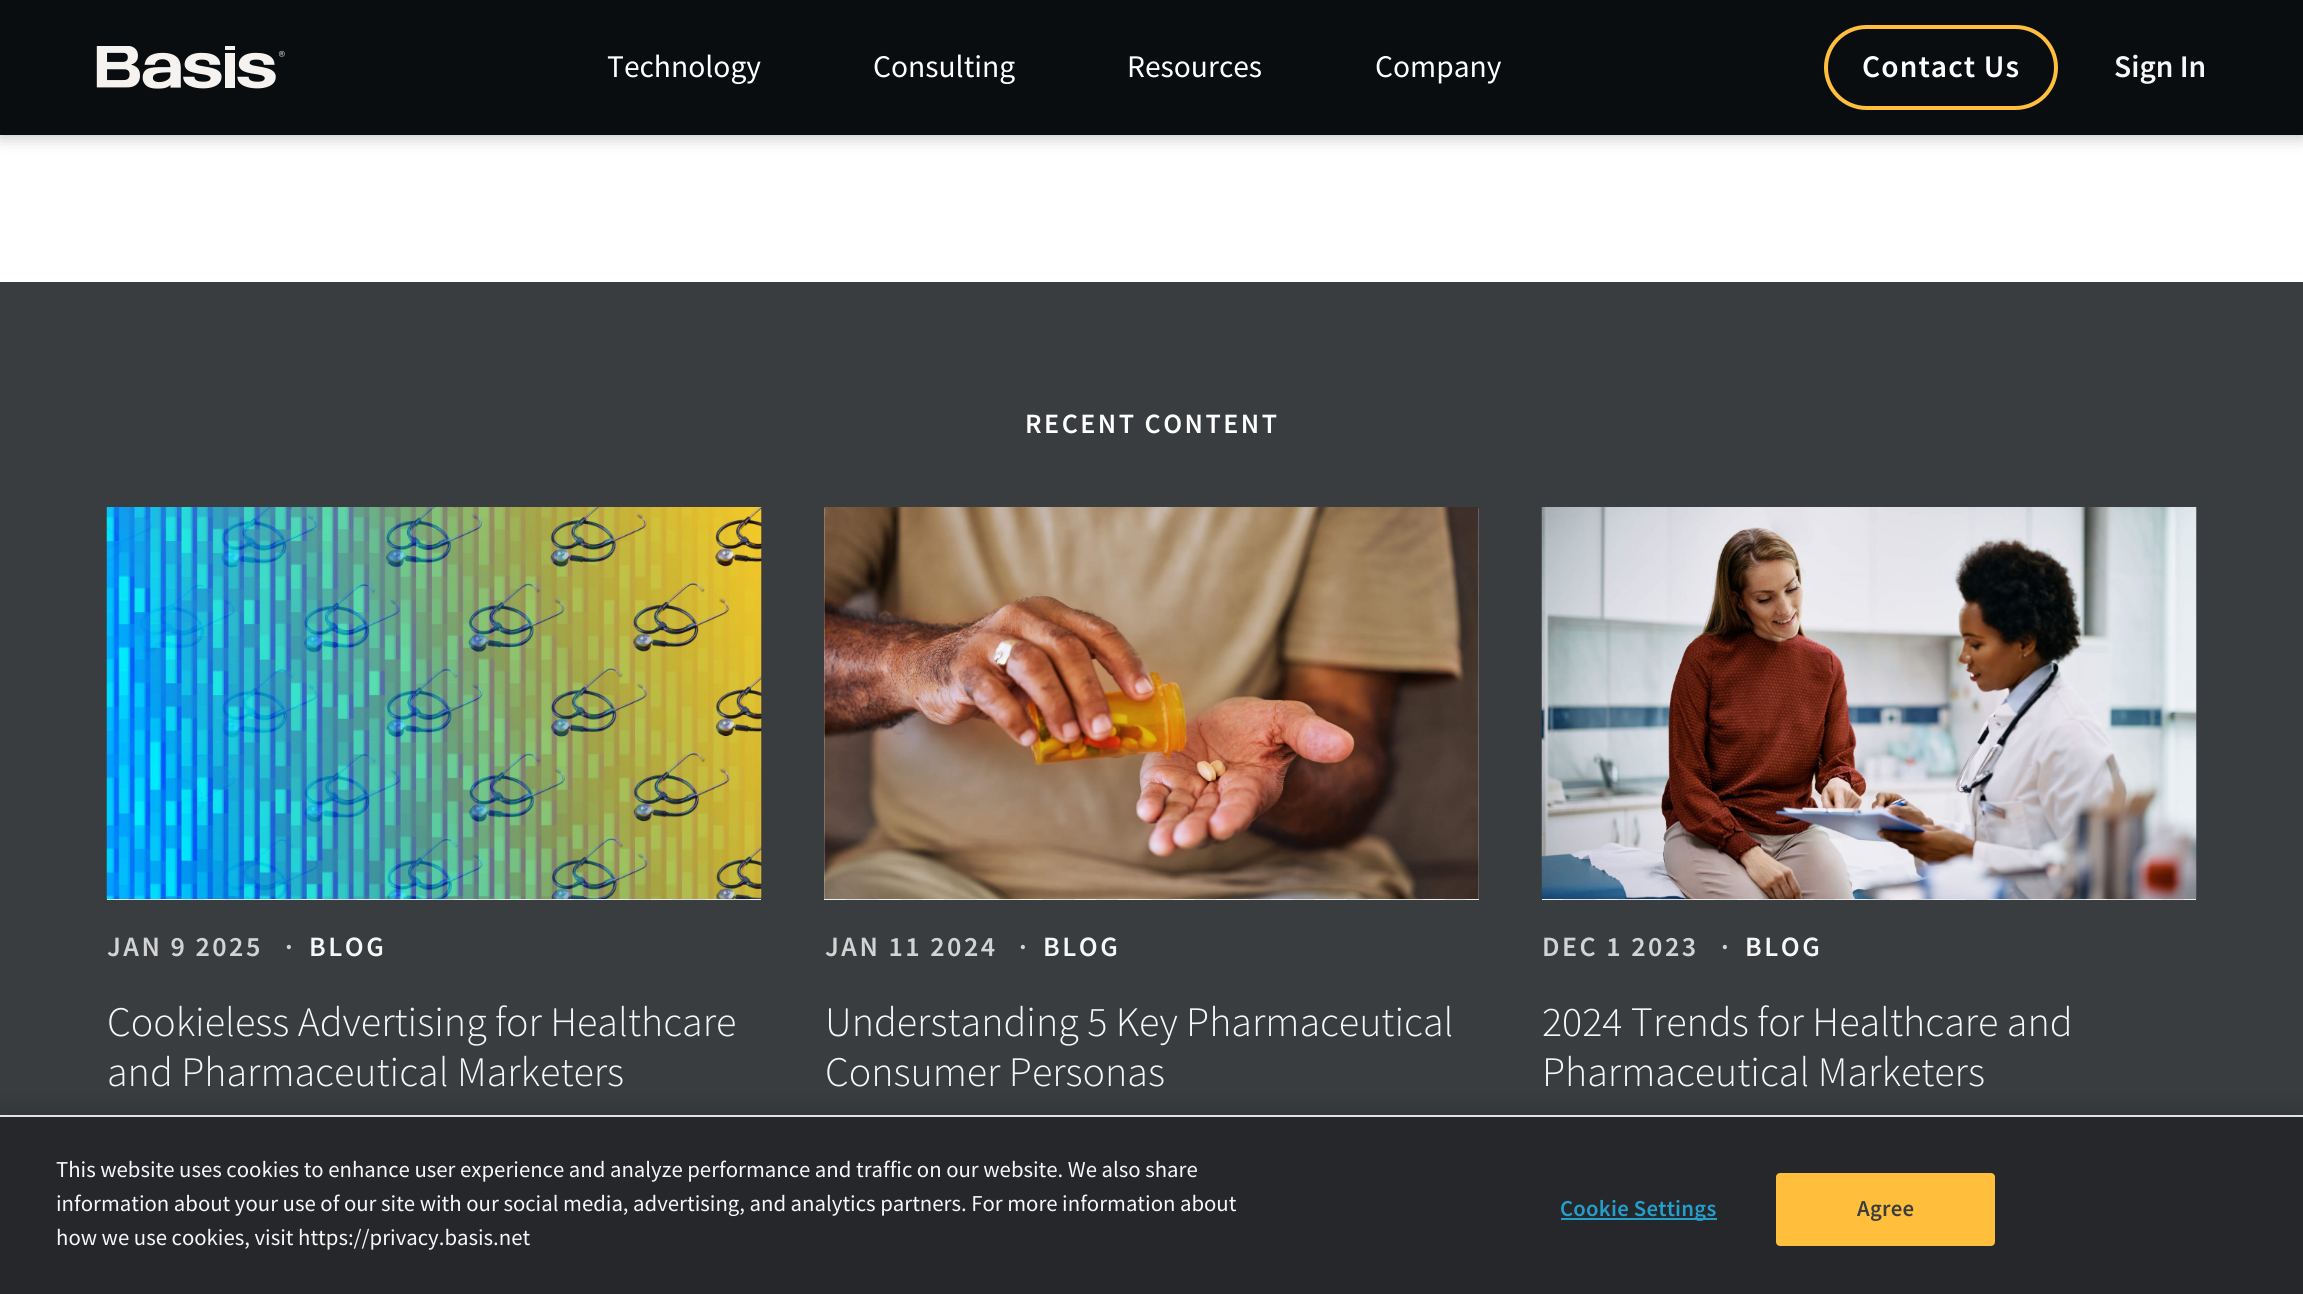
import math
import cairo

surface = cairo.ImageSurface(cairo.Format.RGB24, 2303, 1294)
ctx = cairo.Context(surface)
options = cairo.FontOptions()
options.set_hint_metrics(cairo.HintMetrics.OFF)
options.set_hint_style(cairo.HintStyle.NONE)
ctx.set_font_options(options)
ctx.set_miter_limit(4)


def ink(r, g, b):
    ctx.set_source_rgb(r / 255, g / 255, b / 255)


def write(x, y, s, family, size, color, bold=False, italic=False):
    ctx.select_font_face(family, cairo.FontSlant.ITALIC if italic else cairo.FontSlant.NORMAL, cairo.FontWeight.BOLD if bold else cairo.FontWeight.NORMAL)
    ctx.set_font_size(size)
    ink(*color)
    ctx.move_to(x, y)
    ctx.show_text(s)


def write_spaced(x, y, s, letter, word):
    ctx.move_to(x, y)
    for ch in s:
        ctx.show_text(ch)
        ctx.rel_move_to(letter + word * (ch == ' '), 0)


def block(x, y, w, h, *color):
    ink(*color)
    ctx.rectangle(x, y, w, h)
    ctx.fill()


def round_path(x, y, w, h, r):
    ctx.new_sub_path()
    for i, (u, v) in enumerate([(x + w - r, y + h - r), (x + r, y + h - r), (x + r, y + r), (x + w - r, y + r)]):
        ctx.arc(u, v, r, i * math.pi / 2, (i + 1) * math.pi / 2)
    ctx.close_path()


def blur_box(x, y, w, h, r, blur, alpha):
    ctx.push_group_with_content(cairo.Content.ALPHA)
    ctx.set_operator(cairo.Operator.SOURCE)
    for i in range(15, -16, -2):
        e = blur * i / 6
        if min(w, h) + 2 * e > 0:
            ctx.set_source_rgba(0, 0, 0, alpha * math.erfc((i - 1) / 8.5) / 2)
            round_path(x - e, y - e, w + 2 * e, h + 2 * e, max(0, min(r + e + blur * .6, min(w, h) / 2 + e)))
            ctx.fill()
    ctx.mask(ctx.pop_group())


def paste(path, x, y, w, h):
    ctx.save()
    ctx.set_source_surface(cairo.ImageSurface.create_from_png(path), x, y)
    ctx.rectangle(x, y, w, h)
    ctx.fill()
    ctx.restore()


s1 = dict(family="Source Sans Pro", size=31.5, color=(255, 255, 255))
s2 = dict(family="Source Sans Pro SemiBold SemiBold", size=31.5, color=(247, 247, 247))
s3 = dict(family="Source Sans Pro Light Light", size=42, color=(247, 247, 247))
s4 = dict(family="Source Sans Pro", size=22.75, color=(247, 247, 247))

ink(255, 255, 255)
ctx.paint()
ink(0, 0, 0)
blur_box(0, 0, 2303, 135, 0, 9, 0.3)
block(0, 0, 2303, 135, 10, 13, 16)
paste("pic1.png", 96, 46, 189, 43)
write(607, 77, "Technology", **s1)
write(873, 77, "Consulting", **s1)
write(1127, 77, "Resources", **s1)
write(1375, 77, "Company", **s1)
round_path(1826, 27, 230, 81, 40.5)
ink(255, 191, 61)
ctx.set_line_width(4)
ctx.stroke()
ctx.select_font_face("Source Sans Pro SemiBold SemiBold")
ink(255, 255, 255)
write_spaced(1862, 77, "Contact Us", 1.1, 0)
write(2114, 77, "Sign In", **s2)
block(0, 282, 2303, 833, 58, 61, 64)
ctx.set_font_size(28)
ink(255, 255, 255)
write_spaced(1025, 433, "RECENT CONTENT", 2.5, 0)
gradient = cairo.LinearGradient(172, 965, 717, 421)
gradient.add_color_stop_rgba(0, 0.933, 0.933, 0.933, 1)
gradient.add_color_stop_rgba(0.02, 0.933, 0.933, 0.933, 1)
gradient.add_color_stop_rgba(0.02, 0.867, 0.867, 0.867, 1)
gradient.add_color_stop_rgba(0.05, 0.867, 0.867, 0.867, 1)
gradient.add_color_stop_rgba(0.05, 0.933, 0.933, 0.933, 1)
gradient.add_color_stop_rgba(0.07, 0.933, 0.933, 0.933, 1)
gradient.add_color_stop_rgba(0.07, 0.867, 0.867, 0.867, 1)
gradient.add_color_stop_rgba(0.09, 0.867, 0.867, 0.867, 1)
gradient.add_color_stop_rgba(0.09, 0.933, 0.933, 0.933, 1)
gradient.add_color_stop_rgba(0.11, 0.933, 0.933, 0.933, 1)
gradient.add_color_stop_rgba(0.11, 0.867, 0.867, 0.867, 1)
gradient.add_color_stop_rgba(0.14, 0.867, 0.867, 0.867, 1)
gradient.add_color_stop_rgba(0.14, 0.933, 0.933, 0.933, 1)
gradient.add_color_stop_rgba(0.16, 0.933, 0.933, 0.933, 1)
gradient.add_color_stop_rgba(0.16, 0.867, 0.867, 0.867, 1)
gradient.add_color_stop_rgba(0.18, 0.867, 0.867, 0.867, 1)
gradient.add_color_stop_rgba(0.18, 0.933, 0.933, 0.933, 1)
gradient.add_color_stop_rgba(0.2, 0.933, 0.933, 0.933, 1)
gradient.add_color_stop_rgba(0.2, 0.867, 0.867, 0.867, 1)
gradient.add_color_stop_rgba(0.23, 0.867, 0.867, 0.867, 1)
gradient.add_color_stop_rgba(0.23, 0.933, 0.933, 0.933, 1)
gradient.add_color_stop_rgba(0.25, 0.933, 0.933, 0.933, 1)
gradient.add_color_stop_rgba(0.25, 0.867, 0.867, 0.867, 1)
gradient.add_color_stop_rgba(0.27, 0.867, 0.867, 0.867, 1)
gradient.add_color_stop_rgba(0.27, 0.933, 0.933, 0.933, 1)
gradient.add_color_stop_rgba(0.3, 0.933, 0.933, 0.933, 1)
gradient.add_color_stop_rgba(0.3, 0.867, 0.867, 0.867, 1)
gradient.add_color_stop_rgba(0.32, 0.867, 0.867, 0.867, 1)
gradient.add_color_stop_rgba(0.32, 0.933, 0.933, 0.933, 1)
gradient.add_color_stop_rgba(0.34, 0.933, 0.933, 0.933, 1)
gradient.add_color_stop_rgba(0.34, 0.867, 0.867, 0.867, 1)
gradient.add_color_stop_rgba(0.36, 0.867, 0.867, 0.867, 1)
gradient.add_color_stop_rgba(0.36, 0.933, 0.933, 0.933, 1)
gradient.add_color_stop_rgba(0.39, 0.933, 0.933, 0.933, 1)
gradient.add_color_stop_rgba(0.39, 0.867, 0.867, 0.867, 1)
gradient.add_color_stop_rgba(0.41, 0.867, 0.867, 0.867, 1)
gradient.add_color_stop_rgba(0.41, 0.933, 0.933, 0.933, 1)
gradient.add_color_stop_rgba(0.43, 0.933, 0.933, 0.933, 1)
gradient.add_color_stop_rgba(0.43, 0.867, 0.867, 0.867, 1)
gradient.add_color_stop_rgba(0.45, 0.867, 0.867, 0.867, 1)
gradient.add_color_stop_rgba(0.45, 0.933, 0.933, 0.933, 1)
gradient.add_color_stop_rgba(0.48, 0.933, 0.933, 0.933, 1)
gradient.add_color_stop_rgba(0.48, 0.867, 0.867, 0.867, 1)
gradient.add_color_stop_rgba(0.5, 0.867, 0.867, 0.867, 1)
gradient.add_color_stop_rgba(0.5, 0.933, 0.933, 0.933, 1)
gradient.add_color_stop_rgba(0.52, 0.933, 0.933, 0.933, 1)
gradient.add_color_stop_rgba(0.52, 0.867, 0.867, 0.867, 1)
gradient.add_color_stop_rgba(0.55, 0.867, 0.867, 0.867, 1)
gradient.add_color_stop_rgba(0.55, 0.933, 0.933, 0.933, 1)
gradient.add_color_stop_rgba(0.57, 0.933, 0.933, 0.933, 1)
gradient.add_color_stop_rgba(0.57, 0.867, 0.867, 0.867, 1)
gradient.add_color_stop_rgba(0.59, 0.867, 0.867, 0.867, 1)
gradient.add_color_stop_rgba(0.59, 0.933, 0.933, 0.933, 1)
gradient.add_color_stop_rgba(0.61, 0.933, 0.933, 0.933, 1)
gradient.add_color_stop_rgba(0.61, 0.867, 0.867, 0.867, 1)
gradient.add_color_stop_rgba(0.64, 0.867, 0.867, 0.867, 1)
gradient.add_color_stop_rgba(0.64, 0.933, 0.933, 0.933, 1)
gradient.add_color_stop_rgba(0.66, 0.933, 0.933, 0.933, 1)
gradient.add_color_stop_rgba(0.66, 0.867, 0.867, 0.867, 1)
gradient.add_color_stop_rgba(0.68, 0.867, 0.867, 0.867, 1)
gradient.add_color_stop_rgba(0.68, 0.933, 0.933, 0.933, 1)
gradient.add_color_stop_rgba(0.7, 0.933, 0.933, 0.933, 1)
gradient.add_color_stop_rgba(0.7, 0.867, 0.867, 0.867, 1)
gradient.add_color_stop_rgba(0.73, 0.867, 0.867, 0.867, 1)
gradient.add_color_stop_rgba(0.73, 0.933, 0.933, 0.933, 1)
gradient.add_color_stop_rgba(0.75, 0.933, 0.933, 0.933, 1)
gradient.add_color_stop_rgba(0.75, 0.867, 0.867, 0.867, 1)
gradient.add_color_stop_rgba(0.77, 0.867, 0.867, 0.867, 1)
gradient.add_color_stop_rgba(0.77, 0.933, 0.933, 0.933, 1)
gradient.add_color_stop_rgba(0.8, 0.933, 0.933, 0.933, 1)
gradient.add_color_stop_rgba(0.8, 0.867, 0.867, 0.867, 1)
gradient.add_color_stop_rgba(0.82, 0.867, 0.867, 0.867, 1)
gradient.add_color_stop_rgba(0.82, 0.933, 0.933, 0.933, 1)
gradient.add_color_stop_rgba(0.84, 0.933, 0.933, 0.933, 1)
gradient.add_color_stop_rgba(0.84, 0.867, 0.867, 0.867, 1)
gradient.add_color_stop_rgba(0.86, 0.867, 0.867, 0.867, 1)
gradient.add_color_stop_rgba(0.86, 0.933, 0.933, 0.933, 1)
gradient.add_color_stop_rgba(0.89, 0.933, 0.933, 0.933, 1)
gradient.add_color_stop_rgba(0.89, 0.867, 0.867, 0.867, 1)
gradient.add_color_stop_rgba(0.91, 0.867, 0.867, 0.867, 1)
gradient.add_color_stop_rgba(0.91, 0.933, 0.933, 0.933, 1)
gradient.add_color_stop_rgba(0.93, 0.933, 0.933, 0.933, 1)
gradient.add_color_stop_rgba(0.93, 0.867, 0.867, 0.867, 1)
gradient.add_color_stop_rgba(0.95, 0.867, 0.867, 0.867, 1)
gradient.add_color_stop_rgba(0.95, 0.933, 0.933, 0.933, 1)
gradient.add_color_stop_rgba(0.98, 0.933, 0.933, 0.933, 1)
gradient.add_color_stop_rgba(0.98, 0.867, 0.867, 0.867, 1)
gradient.add_color_stop_rgba(1, 0.867, 0.867, 0.867, 1)
ctx.set_source(gradient)
ctx.rectangle(107, 899, 654, 1)
ctx.fill()
paste("pic2.png", 106, 507, 656, 392)
ink(211, 211, 211)
write_spaced(107, 956, "JAN 9 2025", 2.5, 0)
write_spaced(285, 956, "·", 2.5, 0)
ink(247, 247, 247)
write_spaced(309, 956, "BLOG", 2.5, 0)
write(107, 1036, "Cookieless Advertising for Healthcare", **s3)
write(107, 1086, "and Pharmaceutical Marketers", **s3)
gradient = cairo.LinearGradient(890, 965, 1434, 421)
gradient.add_color_stop_rgba(0, 0.933, 0.933, 0.933, 1)
gradient.add_color_stop_rgba(0.02, 0.933, 0.933, 0.933, 1)
gradient.add_color_stop_rgba(0.02, 0.867, 0.867, 0.867, 1)
gradient.add_color_stop_rgba(0.05, 0.867, 0.867, 0.867, 1)
gradient.add_color_stop_rgba(0.05, 0.933, 0.933, 0.933, 1)
gradient.add_color_stop_rgba(0.07, 0.933, 0.933, 0.933, 1)
gradient.add_color_stop_rgba(0.07, 0.867, 0.867, 0.867, 1)
gradient.add_color_stop_rgba(0.09, 0.867, 0.867, 0.867, 1)
gradient.add_color_stop_rgba(0.09, 0.933, 0.933, 0.933, 1)
gradient.add_color_stop_rgba(0.11, 0.933, 0.933, 0.933, 1)
gradient.add_color_stop_rgba(0.11, 0.867, 0.867, 0.867, 1)
gradient.add_color_stop_rgba(0.14, 0.867, 0.867, 0.867, 1)
gradient.add_color_stop_rgba(0.14, 0.933, 0.933, 0.933, 1)
gradient.add_color_stop_rgba(0.16, 0.933, 0.933, 0.933, 1)
gradient.add_color_stop_rgba(0.16, 0.867, 0.867, 0.867, 1)
gradient.add_color_stop_rgba(0.18, 0.867, 0.867, 0.867, 1)
gradient.add_color_stop_rgba(0.18, 0.933, 0.933, 0.933, 1)
gradient.add_color_stop_rgba(0.2, 0.933, 0.933, 0.933, 1)
gradient.add_color_stop_rgba(0.2, 0.867, 0.867, 0.867, 1)
gradient.add_color_stop_rgba(0.23, 0.867, 0.867, 0.867, 1)
gradient.add_color_stop_rgba(0.23, 0.933, 0.933, 0.933, 1)
gradient.add_color_stop_rgba(0.25, 0.933, 0.933, 0.933, 1)
gradient.add_color_stop_rgba(0.25, 0.867, 0.867, 0.867, 1)
gradient.add_color_stop_rgba(0.27, 0.867, 0.867, 0.867, 1)
gradient.add_color_stop_rgba(0.27, 0.933, 0.933, 0.933, 1)
gradient.add_color_stop_rgba(0.3, 0.933, 0.933, 0.933, 1)
gradient.add_color_stop_rgba(0.3, 0.867, 0.867, 0.867, 1)
gradient.add_color_stop_rgba(0.32, 0.867, 0.867, 0.867, 1)
gradient.add_color_stop_rgba(0.32, 0.933, 0.933, 0.933, 1)
gradient.add_color_stop_rgba(0.34, 0.933, 0.933, 0.933, 1)
gradient.add_color_stop_rgba(0.34, 0.867, 0.867, 0.867, 1)
gradient.add_color_stop_rgba(0.36, 0.867, 0.867, 0.867, 1)
gradient.add_color_stop_rgba(0.36, 0.933, 0.933, 0.933, 1)
gradient.add_color_stop_rgba(0.39, 0.933, 0.933, 0.933, 1)
gradient.add_color_stop_rgba(0.39, 0.867, 0.867, 0.867, 1)
gradient.add_color_stop_rgba(0.41, 0.867, 0.867, 0.867, 1)
gradient.add_color_stop_rgba(0.41, 0.933, 0.933, 0.933, 1)
gradient.add_color_stop_rgba(0.43, 0.933, 0.933, 0.933, 1)
gradient.add_color_stop_rgba(0.43, 0.867, 0.867, 0.867, 1)
gradient.add_color_stop_rgba(0.45, 0.867, 0.867, 0.867, 1)
gradient.add_color_stop_rgba(0.45, 0.933, 0.933, 0.933, 1)
gradient.add_color_stop_rgba(0.48, 0.933, 0.933, 0.933, 1)
gradient.add_color_stop_rgba(0.48, 0.867, 0.867, 0.867, 1)
gradient.add_color_stop_rgba(0.5, 0.867, 0.867, 0.867, 1)
gradient.add_color_stop_rgba(0.5, 0.933, 0.933, 0.933, 1)
gradient.add_color_stop_rgba(0.52, 0.933, 0.933, 0.933, 1)
gradient.add_color_stop_rgba(0.52, 0.867, 0.867, 0.867, 1)
gradient.add_color_stop_rgba(0.55, 0.867, 0.867, 0.867, 1)
gradient.add_color_stop_rgba(0.55, 0.933, 0.933, 0.933, 1)
gradient.add_color_stop_rgba(0.57, 0.933, 0.933, 0.933, 1)
gradient.add_color_stop_rgba(0.57, 0.867, 0.867, 0.867, 1)
gradient.add_color_stop_rgba(0.59, 0.867, 0.867, 0.867, 1)
gradient.add_color_stop_rgba(0.59, 0.933, 0.933, 0.933, 1)
gradient.add_color_stop_rgba(0.61, 0.933, 0.933, 0.933, 1)
gradient.add_color_stop_rgba(0.61, 0.867, 0.867, 0.867, 1)
gradient.add_color_stop_rgba(0.64, 0.867, 0.867, 0.867, 1)
gradient.add_color_stop_rgba(0.64, 0.933, 0.933, 0.933, 1)
gradient.add_color_stop_rgba(0.66, 0.933, 0.933, 0.933, 1)
gradient.add_color_stop_rgba(0.66, 0.867, 0.867, 0.867, 1)
gradient.add_color_stop_rgba(0.68, 0.867, 0.867, 0.867, 1)
gradient.add_color_stop_rgba(0.68, 0.933, 0.933, 0.933, 1)
gradient.add_color_stop_rgba(0.7, 0.933, 0.933, 0.933, 1)
gradient.add_color_stop_rgba(0.7, 0.867, 0.867, 0.867, 1)
gradient.add_color_stop_rgba(0.73, 0.867, 0.867, 0.867, 1)
gradient.add_color_stop_rgba(0.73, 0.933, 0.933, 0.933, 1)
gradient.add_color_stop_rgba(0.75, 0.933, 0.933, 0.933, 1)
gradient.add_color_stop_rgba(0.75, 0.867, 0.867, 0.867, 1)
gradient.add_color_stop_rgba(0.77, 0.867, 0.867, 0.867, 1)
gradient.add_color_stop_rgba(0.77, 0.933, 0.933, 0.933, 1)
gradient.add_color_stop_rgba(0.8, 0.933, 0.933, 0.933, 1)
gradient.add_color_stop_rgba(0.8, 0.867, 0.867, 0.867, 1)
gradient.add_color_stop_rgba(0.82, 0.867, 0.867, 0.867, 1)
gradient.add_color_stop_rgba(0.82, 0.933, 0.933, 0.933, 1)
gradient.add_color_stop_rgba(0.84, 0.933, 0.933, 0.933, 1)
gradient.add_color_stop_rgba(0.84, 0.867, 0.867, 0.867, 1)
gradient.add_color_stop_rgba(0.86, 0.867, 0.867, 0.867, 1)
gradient.add_color_stop_rgba(0.86, 0.933, 0.933, 0.933, 1)
gradient.add_color_stop_rgba(0.89, 0.933, 0.933, 0.933, 1)
gradient.add_color_stop_rgba(0.89, 0.867, 0.867, 0.867, 1)
gradient.add_color_stop_rgba(0.91, 0.867, 0.867, 0.867, 1)
gradient.add_color_stop_rgba(0.91, 0.933, 0.933, 0.933, 1)
gradient.add_color_stop_rgba(0.93, 0.933, 0.933, 0.933, 1)
gradient.add_color_stop_rgba(0.93, 0.867, 0.867, 0.867, 1)
gradient.add_color_stop_rgba(0.95, 0.867, 0.867, 0.867, 1)
gradient.add_color_stop_rgba(0.95, 0.933, 0.933, 0.933, 1)
gradient.add_color_stop_rgba(0.98, 0.933, 0.933, 0.933, 1)
gradient.add_color_stop_rgba(0.98, 0.867, 0.867, 0.867, 1)
gradient.add_color_stop_rgba(1, 0.867, 0.867, 0.867, 1)
ctx.set_source(gradient)
ctx.rectangle(824, 508, 655, 392)
ctx.fill()
paste("pic3.png", 824, 507, 655, 392)
ctx.select_font_face("Source Sans Pro SemiBold SemiBold")
ctx.set_font_size(28)
ink(211, 211, 211)
write_spaced(825, 956, "JAN 11 2024", 2.5, 0)
write_spaced(1019, 956, "·", 2.5, 0)
ink(247, 247, 247)
write_spaced(1043, 956, "BLOG", 2.5, 0)
write(825, 1036, "Understanding 5 Key Pharmaceutical", **s3)
write(825, 1086, "Consumer Personas", **s3)
gradient = cairo.LinearGradient(1607, 965, 2152, 421)
gradient.add_color_stop_rgba(0, 0.933, 0.933, 0.933, 1)
gradient.add_color_stop_rgba(0.02, 0.933, 0.933, 0.933, 1)
gradient.add_color_stop_rgba(0.02, 0.867, 0.867, 0.867, 1)
gradient.add_color_stop_rgba(0.05, 0.867, 0.867, 0.867, 1)
gradient.add_color_stop_rgba(0.05, 0.933, 0.933, 0.933, 1)
gradient.add_color_stop_rgba(0.07, 0.933, 0.933, 0.933, 1)
gradient.add_color_stop_rgba(0.07, 0.867, 0.867, 0.867, 1)
gradient.add_color_stop_rgba(0.09, 0.867, 0.867, 0.867, 1)
gradient.add_color_stop_rgba(0.09, 0.933, 0.933, 0.933, 1)
gradient.add_color_stop_rgba(0.11, 0.933, 0.933, 0.933, 1)
gradient.add_color_stop_rgba(0.11, 0.867, 0.867, 0.867, 1)
gradient.add_color_stop_rgba(0.14, 0.867, 0.867, 0.867, 1)
gradient.add_color_stop_rgba(0.14, 0.933, 0.933, 0.933, 1)
gradient.add_color_stop_rgba(0.16, 0.933, 0.933, 0.933, 1)
gradient.add_color_stop_rgba(0.16, 0.867, 0.867, 0.867, 1)
gradient.add_color_stop_rgba(0.18, 0.867, 0.867, 0.867, 1)
gradient.add_color_stop_rgba(0.18, 0.933, 0.933, 0.933, 1)
gradient.add_color_stop_rgba(0.2, 0.933, 0.933, 0.933, 1)
gradient.add_color_stop_rgba(0.2, 0.867, 0.867, 0.867, 1)
gradient.add_color_stop_rgba(0.23, 0.867, 0.867, 0.867, 1)
gradient.add_color_stop_rgba(0.23, 0.933, 0.933, 0.933, 1)
gradient.add_color_stop_rgba(0.25, 0.933, 0.933, 0.933, 1)
gradient.add_color_stop_rgba(0.25, 0.867, 0.867, 0.867, 1)
gradient.add_color_stop_rgba(0.27, 0.867, 0.867, 0.867, 1)
gradient.add_color_stop_rgba(0.27, 0.933, 0.933, 0.933, 1)
gradient.add_color_stop_rgba(0.3, 0.933, 0.933, 0.933, 1)
gradient.add_color_stop_rgba(0.3, 0.867, 0.867, 0.867, 1)
gradient.add_color_stop_rgba(0.32, 0.867, 0.867, 0.867, 1)
gradient.add_color_stop_rgba(0.32, 0.933, 0.933, 0.933, 1)
gradient.add_color_stop_rgba(0.34, 0.933, 0.933, 0.933, 1)
gradient.add_color_stop_rgba(0.34, 0.867, 0.867, 0.867, 1)
gradient.add_color_stop_rgba(0.36, 0.867, 0.867, 0.867, 1)
gradient.add_color_stop_rgba(0.36, 0.933, 0.933, 0.933, 1)
gradient.add_color_stop_rgba(0.39, 0.933, 0.933, 0.933, 1)
gradient.add_color_stop_rgba(0.39, 0.867, 0.867, 0.867, 1)
gradient.add_color_stop_rgba(0.41, 0.867, 0.867, 0.867, 1)
gradient.add_color_stop_rgba(0.41, 0.933, 0.933, 0.933, 1)
gradient.add_color_stop_rgba(0.43, 0.933, 0.933, 0.933, 1)
gradient.add_color_stop_rgba(0.43, 0.867, 0.867, 0.867, 1)
gradient.add_color_stop_rgba(0.45, 0.867, 0.867, 0.867, 1)
gradient.add_color_stop_rgba(0.45, 0.933, 0.933, 0.933, 1)
gradient.add_color_stop_rgba(0.48, 0.933, 0.933, 0.933, 1)
gradient.add_color_stop_rgba(0.48, 0.867, 0.867, 0.867, 1)
gradient.add_color_stop_rgba(0.5, 0.867, 0.867, 0.867, 1)
gradient.add_color_stop_rgba(0.5, 0.933, 0.933, 0.933, 1)
gradient.add_color_stop_rgba(0.52, 0.933, 0.933, 0.933, 1)
gradient.add_color_stop_rgba(0.52, 0.867, 0.867, 0.867, 1)
gradient.add_color_stop_rgba(0.55, 0.867, 0.867, 0.867, 1)
gradient.add_color_stop_rgba(0.55, 0.933, 0.933, 0.933, 1)
gradient.add_color_stop_rgba(0.57, 0.933, 0.933, 0.933, 1)
gradient.add_color_stop_rgba(0.57, 0.867, 0.867, 0.867, 1)
gradient.add_color_stop_rgba(0.59, 0.867, 0.867, 0.867, 1)
gradient.add_color_stop_rgba(0.59, 0.933, 0.933, 0.933, 1)
gradient.add_color_stop_rgba(0.61, 0.933, 0.933, 0.933, 1)
gradient.add_color_stop_rgba(0.61, 0.867, 0.867, 0.867, 1)
gradient.add_color_stop_rgba(0.64, 0.867, 0.867, 0.867, 1)
gradient.add_color_stop_rgba(0.64, 0.933, 0.933, 0.933, 1)
gradient.add_color_stop_rgba(0.66, 0.933, 0.933, 0.933, 1)
gradient.add_color_stop_rgba(0.66, 0.867, 0.867, 0.867, 1)
gradient.add_color_stop_rgba(0.68, 0.867, 0.867, 0.867, 1)
gradient.add_color_stop_rgba(0.68, 0.933, 0.933, 0.933, 1)
gradient.add_color_stop_rgba(0.7, 0.933, 0.933, 0.933, 1)
gradient.add_color_stop_rgba(0.7, 0.867, 0.867, 0.867, 1)
gradient.add_color_stop_rgba(0.73, 0.867, 0.867, 0.867, 1)
gradient.add_color_stop_rgba(0.73, 0.933, 0.933, 0.933, 1)
gradient.add_color_stop_rgba(0.75, 0.933, 0.933, 0.933, 1)
gradient.add_color_stop_rgba(0.75, 0.867, 0.867, 0.867, 1)
gradient.add_color_stop_rgba(0.77, 0.867, 0.867, 0.867, 1)
gradient.add_color_stop_rgba(0.77, 0.933, 0.933, 0.933, 1)
gradient.add_color_stop_rgba(0.8, 0.933, 0.933, 0.933, 1)
gradient.add_color_stop_rgba(0.8, 0.867, 0.867, 0.867, 1)
gradient.add_color_stop_rgba(0.82, 0.867, 0.867, 0.867, 1)
gradient.add_color_stop_rgba(0.82, 0.933, 0.933, 0.933, 1)
gradient.add_color_stop_rgba(0.84, 0.933, 0.933, 0.933, 1)
gradient.add_color_stop_rgba(0.84, 0.867, 0.867, 0.867, 1)
gradient.add_color_stop_rgba(0.86, 0.867, 0.867, 0.867, 1)
gradient.add_color_stop_rgba(0.86, 0.933, 0.933, 0.933, 1)
gradient.add_color_stop_rgba(0.89, 0.933, 0.933, 0.933, 1)
gradient.add_color_stop_rgba(0.89, 0.867, 0.867, 0.867, 1)
gradient.add_color_stop_rgba(0.91, 0.867, 0.867, 0.867, 1)
gradient.add_color_stop_rgba(0.91, 0.933, 0.933, 0.933, 1)
gradient.add_color_stop_rgba(0.93, 0.933, 0.933, 0.933, 1)
gradient.add_color_stop_rgba(0.93, 0.867, 0.867, 0.867, 1)
gradient.add_color_stop_rgba(0.95, 0.867, 0.867, 0.867, 1)
gradient.add_color_stop_rgba(0.95, 0.933, 0.933, 0.933, 1)
gradient.add_color_stop_rgba(0.98, 0.933, 0.933, 0.933, 1)
gradient.add_color_stop_rgba(0.98, 0.867, 0.867, 0.867, 1)
gradient.add_color_stop_rgba(1, 0.867, 0.867, 0.867, 1)
ctx.set_source(gradient)
ctx.rectangle(1542, 899, 654, 1)
ctx.fill()
paste("pic4.png", 1541, 507, 656, 392)
ctx.select_font_face("Source Sans Pro SemiBold SemiBold")
ctx.set_font_size(28)
ink(211, 211, 211)
write_spaced(1542, 956, "DEC 1 2023", 2.5, 0)
write_spaced(1721, 956, "·", 2.5, 0)
ink(247, 247, 247)
write_spaced(1745, 956, "BLOG", 2.5, 0)
write(1542, 1036, "2024 Trends for Healthcare and", **s3)
write(1542, 1086, "Pharmaceutical Marketers", **s3)
ink(0, 0, 0)
blur_box(0, 1115, 2303, 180, 0, 16, 0.2)
block(0, 1117, 2303, 177, 38, 39, 43)
block(0, 1115, 2303, 2, 226, 226, 226)
write(56, 1177, "This website uses cookies to enhance user experience and analyze performance and traffic on our website. We also share", **s4)
write(56, 1211, "information about your use of our site with our social media, advertising, and analytics partners. For more information about", **s4)
write(56, 1245, "how we use cookies, visit https://privacy.basis.net", **s4)
block(1561, 1218, 156, 2, 36, 158, 203)
ctx.select_font_face("Source Sans Pro SemiBold SemiBold")
write_spaced(1560, 1216, "Cookie Settings", 0.25, 0)
ink(255, 191, 61)
round_path(1777, 1174, 217, 71, 3)
ctx.fill_preserve()
ctx.set_line_width(2)
ctx.stroke()
ink(58, 61, 63)
write_spaced(1857, 1216, "Agree", 0.25, 0)
surface.write_to_png("screenshot.png")
